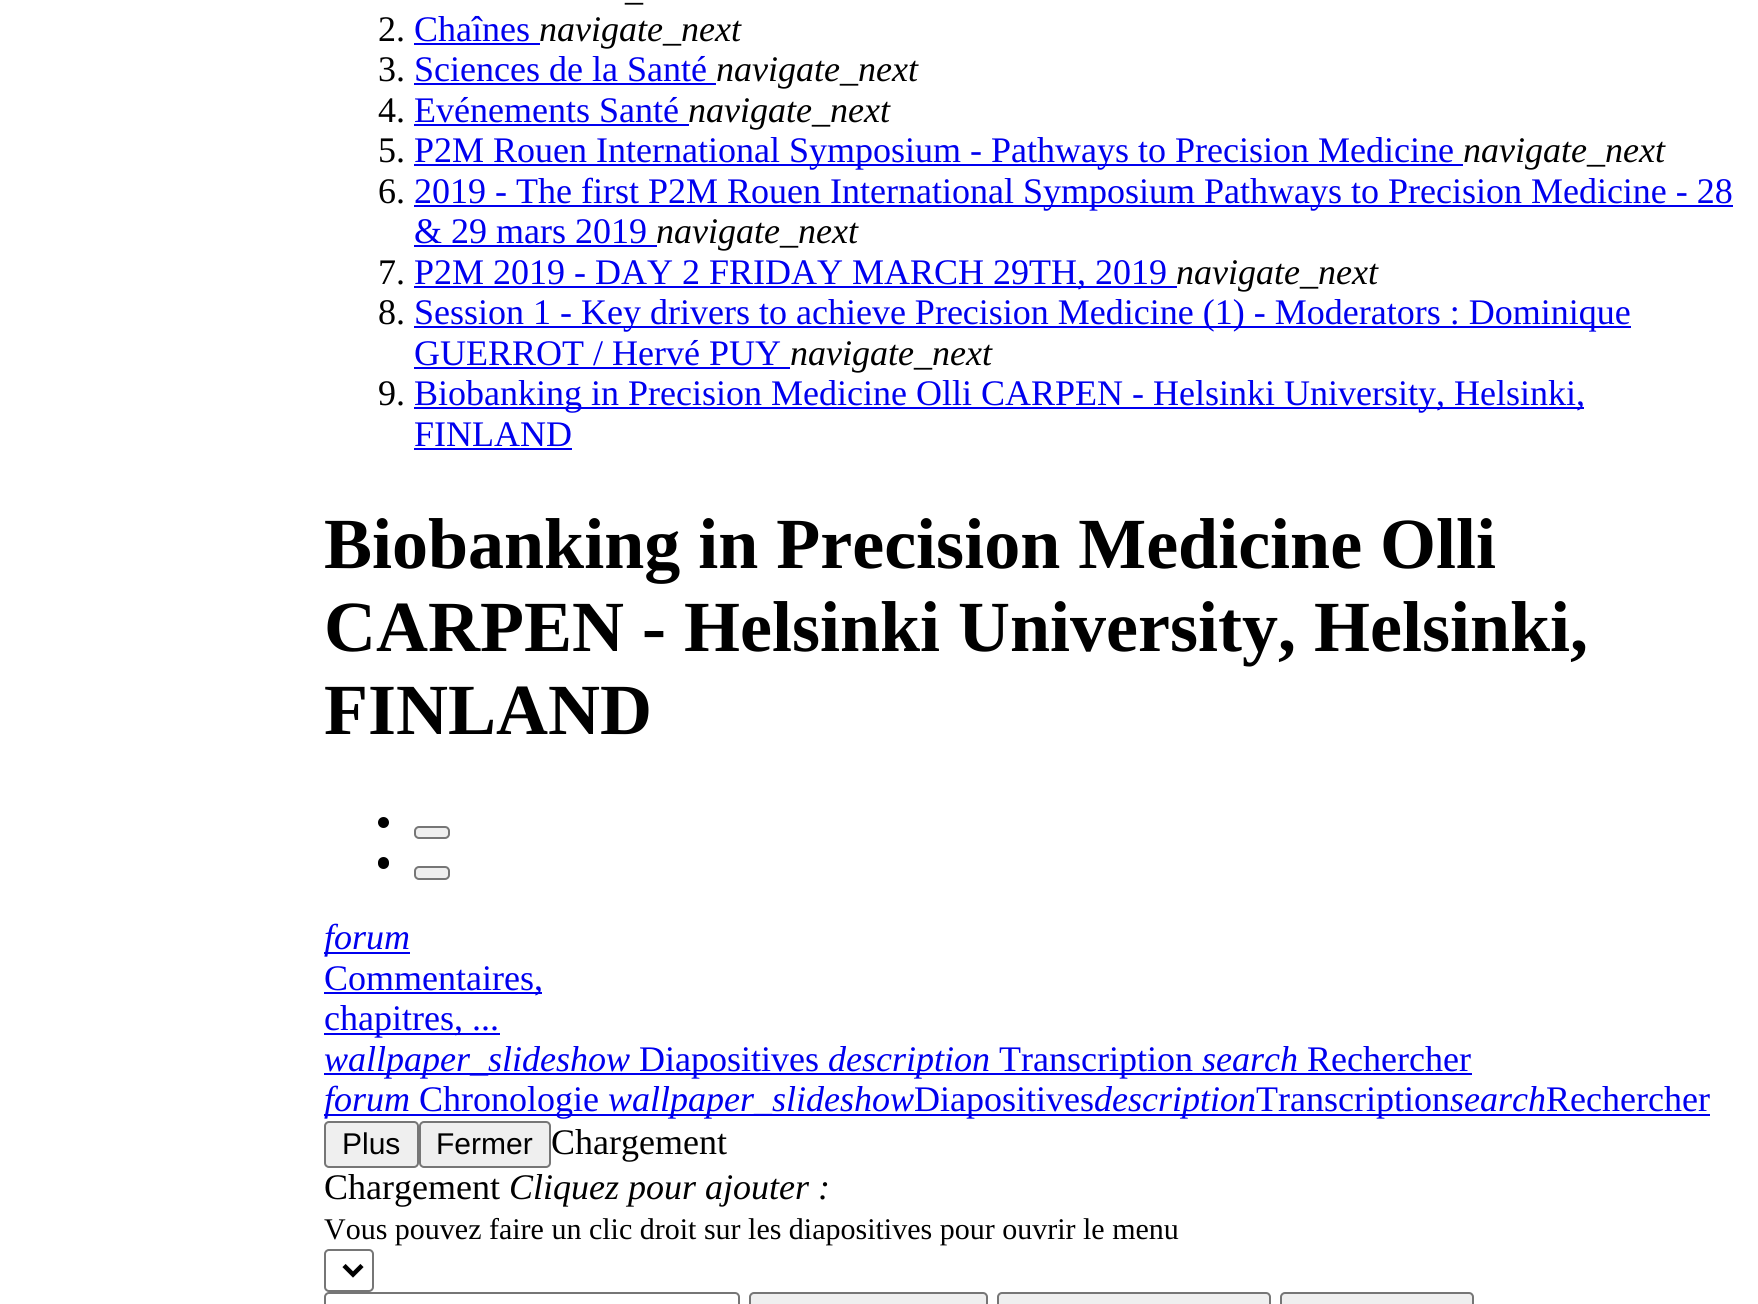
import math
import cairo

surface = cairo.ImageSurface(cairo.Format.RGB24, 1758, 1304)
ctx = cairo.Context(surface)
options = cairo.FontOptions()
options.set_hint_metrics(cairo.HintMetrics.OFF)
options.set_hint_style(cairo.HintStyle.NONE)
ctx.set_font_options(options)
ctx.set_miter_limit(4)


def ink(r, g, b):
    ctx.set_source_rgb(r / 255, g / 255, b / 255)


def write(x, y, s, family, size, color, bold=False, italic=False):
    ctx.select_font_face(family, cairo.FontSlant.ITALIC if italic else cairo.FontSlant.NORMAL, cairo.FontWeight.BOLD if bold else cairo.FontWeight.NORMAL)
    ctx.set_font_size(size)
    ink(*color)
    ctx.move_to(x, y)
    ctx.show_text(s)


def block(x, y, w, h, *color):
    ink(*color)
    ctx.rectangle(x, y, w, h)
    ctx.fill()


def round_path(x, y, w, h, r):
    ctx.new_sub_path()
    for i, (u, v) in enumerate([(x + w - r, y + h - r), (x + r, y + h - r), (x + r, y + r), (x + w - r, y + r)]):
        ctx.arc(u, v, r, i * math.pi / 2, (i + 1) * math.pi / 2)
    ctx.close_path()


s1 = dict(family="Liberation Serif", size=36, color=(0, 0, 0), italic=True)
s2 = dict(family="Liberation Serif", size=36, color=(0, 0, 0))
s3 = dict(family="Liberation Serif", size=36, color=(0, 0, 238))
s4 = dict(family="Liberation Serif", size=72, color=(0, 0, 0), bold=True)
s5 = dict(family="Liberation Serif", size=36, color=(0, 0, 238), italic=True)
s6 = dict(family="Liberation Sans", size=30, color=(0, 0, 0))
s7 = dict(family="Liberation Serif", size=30, color=(0, 0, 0))

ink(255, 255, 255)
ctx.paint()
write(625, 0, "_", **s1)
write(378, 41, "2.", **s2)
write(414, 41, "Chaînes", **s3)
block(414, 43, 126, 2, 0, 0, 238)
write(539, 41, "navigate_next", **s1)
write(378, 81, "3.", **s2)
write(414, 81, "Sciences de la Santé", **s3)
block(414, 83, 302, 2, 0, 0, 238)
write(716, 81, "navigate_next", **s1)
write(378, 122, "4.", **s2)
write(414, 122, "Evénements Santé", **s3)
block(414, 124, 275, 2, 0, 0, 238)
write(688, 122, "navigate_next", **s1)
write(378, 162, "5.", **s2)
block(414, 164, 1049, 2, 0, 0, 238)
write(414, 162, "P2M Rouen International Symposium - Pathways to Precision Medicine", **s3)
write(1463, 162, "navigate_next", **s1)
write(378, 203, "6.", **s2)
block(414, 205, 1319, 2, 0, 0, 238)
write(414, 203, "2019 - The first P2M Rouen International Symposium Pathways to Precision Medicine - 28", **s3)
write(414, 243, "& 29 mars 2019", **s3)
block(414, 245, 243, 2, 0, 0, 238)
write(656, 243, "navigate_next", **s1)
write(378, 284, "7.", **s2)
block(414, 286, 763, 2, 0, 0, 238)
write(414, 284, "P2M 2019 - DAY 2 FRIDAY MARCH 29TH, 2019", **s3)
write(1176, 284, "navigate_next", **s1)
write(378, 324, "8.", **s2)
block(414, 326, 1217, 2, 0, 0, 238)
write(414, 324, "Session 1 - Key drivers to achieve Precision Medicine (1) - Moderators : Dominique", **s3)
write(414, 365, "GUERROT / Hervé PUY", **s3)
block(414, 367, 376, 2, 0, 0, 238)
write(790, 365, "navigate_next", **s1)
write(378, 405, "9.", **s2)
block(414, 407, 1170, 2, 0, 0, 238)
write(414, 405, "Biobanking in Precision Medicine Olli CARPEN - Helsinki University, Helsinki,", **s3)
write(414, 446, "FINLAND", **s3)
block(414, 448, 158, 2, 0, 0, 238)
write(324, 568, "Biobanking in Precision Medicine Olli", **s4)
write(324, 651, "CARPEN - Helsinki University, Helsinki,", **s4)
write(324, 734, "FINLAND", **s4)
ctx.new_path()
ctx.arc(383.5, 822.5, 5.5, 0, 2 * math.pi)
ctx.fill()
ink(239, 239, 239)
round_path(415, 827, 34, 11, 4)
ctx.fill_preserve()
ink(118, 118, 118)
ctx.stroke()
ink(0, 0, 0)
round_path(378, 857, 11, 12, 5.5)
ctx.fill()
ink(239, 239, 239)
round_path(415, 867, 34, 12, 4)
ctx.fill_preserve()
ink(118, 118, 118)
ctx.stroke()
block(324, 952, 86, 2, 0, 0, 238)
write(324, 949, "forum", **s5)
block(324, 992, 218, 2, 0, 0, 238)
write(324, 990, "Commentaires,", **s3)
block(324, 1033, 176, 2, 0, 0, 238)
write(324, 1030, "chapitres, ...", **s3)
block(324, 1073, 1148, 2, 0, 0, 238)
write(324, 1071, "wallpaper_slideshow", **s5)
write(639, 1071, "Diapositives", **s3)
write(828, 1071, "description", **s5)
write(999, 1071, "Transcription", **s3)
write(1202, 1071, "search", **s5)
write(1307, 1071, "Rechercher", **s3)
block(324, 1114, 1125, 2, 0, 0, 238)
write(324, 1111, "forum", **s5)
write(419, 1111, "Chronologie", **s3)
write(608, 1111, "wallpaper_slideshow", **s5)
write(914, 1111, "Diapositives", **s3)
write(1094, 1111, "description", **s5)
write(1256, 1111, "Transcription", **s3)
write(1450, 1111, "search", **s5)
block(1449, 1114, 261, 2, 0, 0, 238)
write(1546, 1111, "Rechercher", **s3)
ink(239, 239, 239)
round_path(325, 1122, 93, 45, 4)
ctx.fill_preserve()
ink(118, 118, 118)
ctx.stroke()
write(342, 1154, "Plus", **s6)
ink(239, 239, 239)
round_path(420, 1122, 130, 45, 4)
ctx.fill_preserve()
ink(118, 118, 118)
ctx.stroke()
write(436, 1154, "Fermer", **s6)
write(551, 1154, "Chargement", **s2)
write(324, 1199, "Chargement", **s2)
write(509, 1199, "Cliquez pour ajouter :", **s1)
write(324, 1239, "Vous pouvez faire un clic droit sur les diapositives pour ouvrir le menu", **s7)
round_path(325, 1250, 48, 41, 4)
ink(118, 118, 118)
ctx.stroke()
ctx.new_path()
ctx.move_to(344, 1265.5)
ctx.line_to(353, 1274.5)
ctx.line_to(362, 1265.5)
ink(0, 0, 0)
ctx.set_line_width(4.5)
ctx.stroke()
round_path(325, 1293, 414, 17, 4)
ink(118, 118, 118)
ctx.set_line_width(2)
ctx.stroke()
ink(239, 239, 239)
round_path(750, 1293, 237, 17, 4)
ctx.fill_preserve()
ink(118, 118, 118)
ctx.stroke()
ink(239, 239, 239)
round_path(998, 1293, 272, 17, 4)
ctx.fill_preserve()
ink(118, 118, 118)
ctx.stroke()
ink(239, 239, 239)
round_path(1281, 1293, 192, 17, 4)
ctx.fill_preserve()
ink(118, 118, 118)
ctx.stroke()
surface.write_to_png("screenshot.png")
